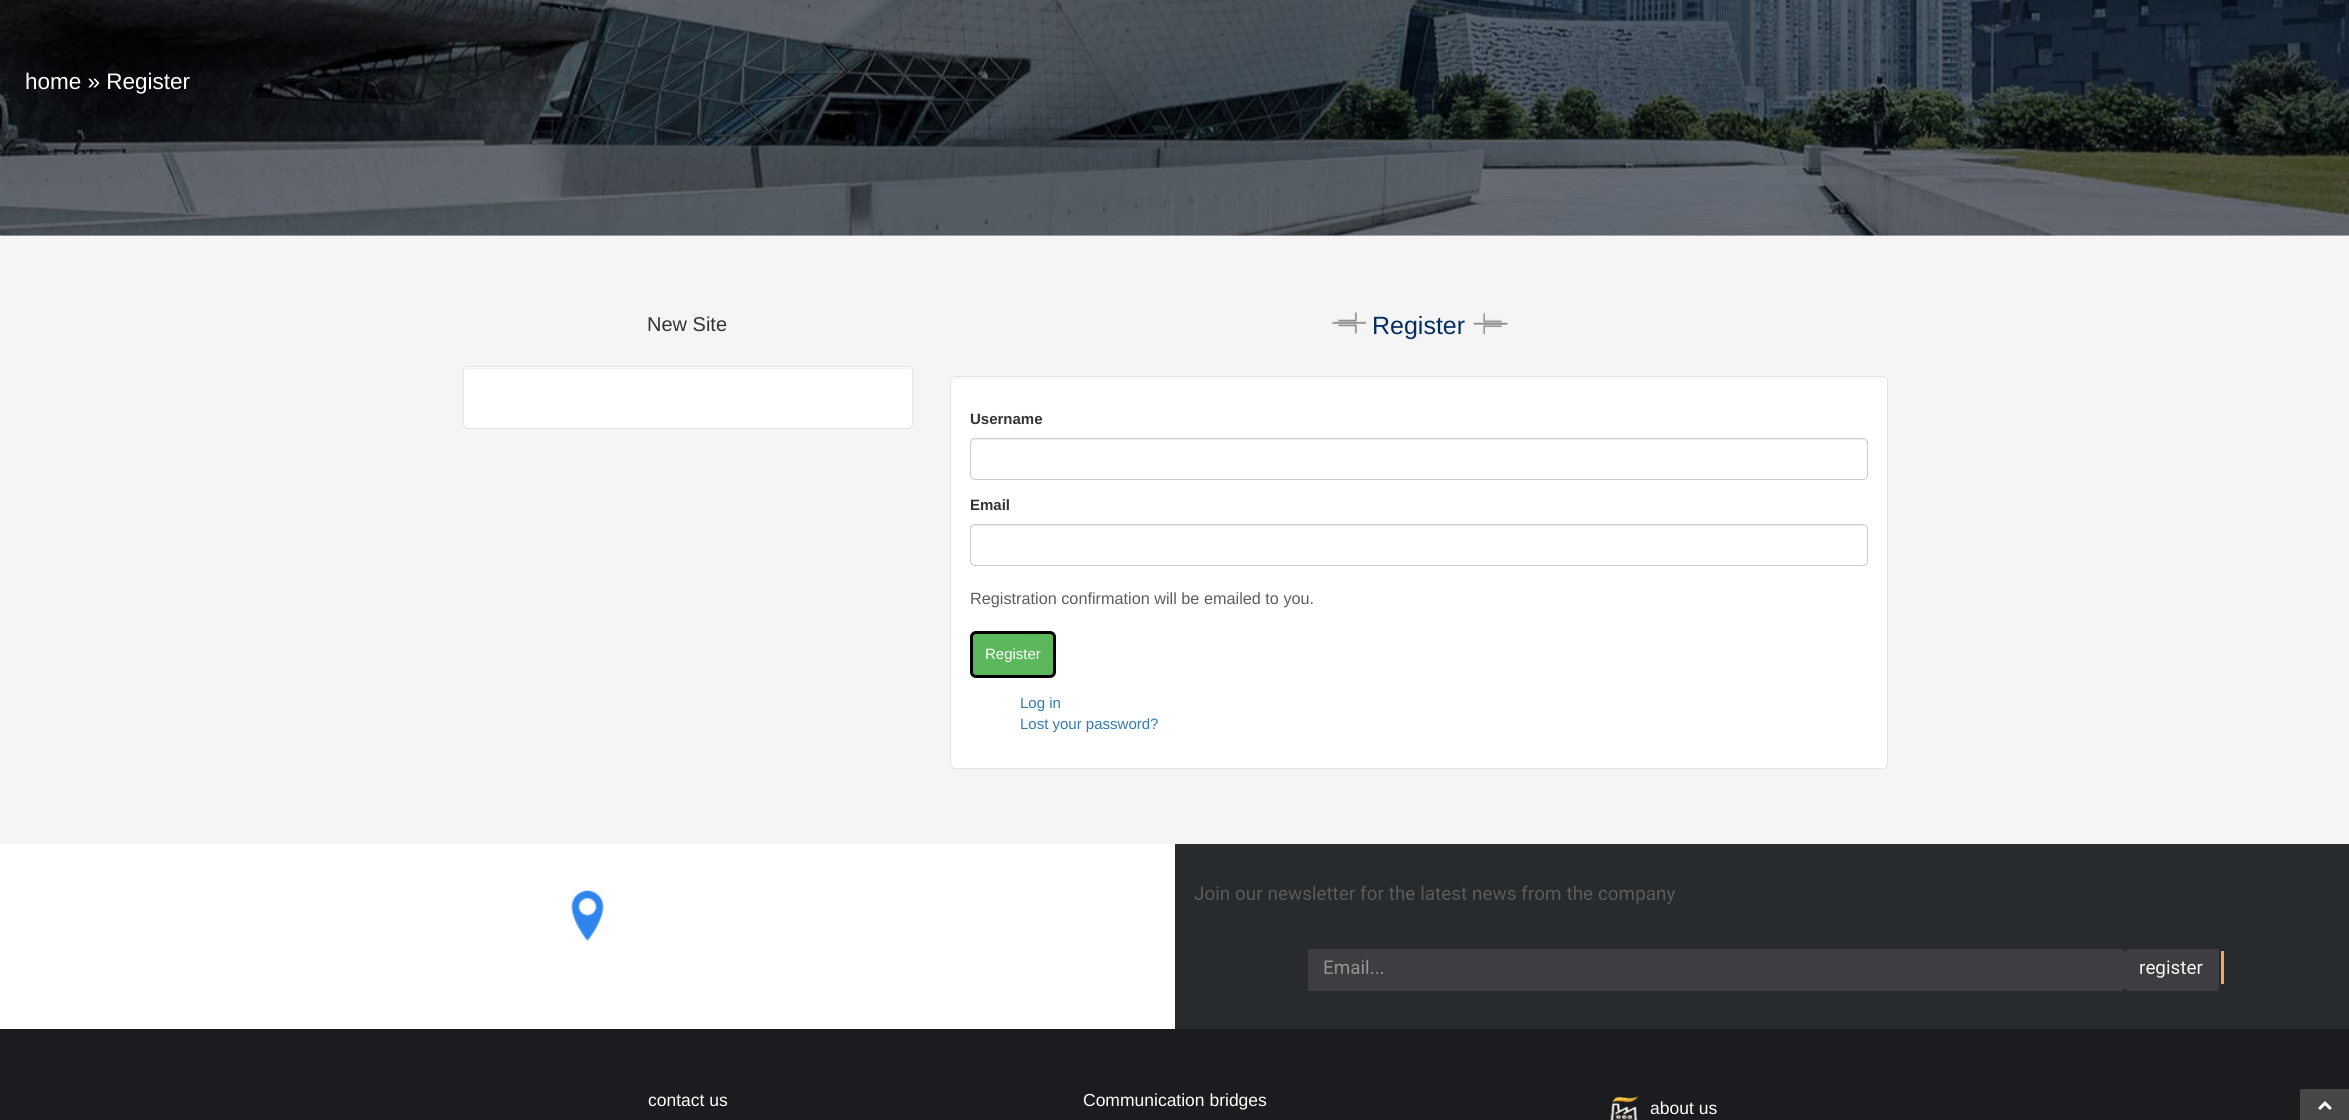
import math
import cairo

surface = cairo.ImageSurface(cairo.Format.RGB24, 2349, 1120)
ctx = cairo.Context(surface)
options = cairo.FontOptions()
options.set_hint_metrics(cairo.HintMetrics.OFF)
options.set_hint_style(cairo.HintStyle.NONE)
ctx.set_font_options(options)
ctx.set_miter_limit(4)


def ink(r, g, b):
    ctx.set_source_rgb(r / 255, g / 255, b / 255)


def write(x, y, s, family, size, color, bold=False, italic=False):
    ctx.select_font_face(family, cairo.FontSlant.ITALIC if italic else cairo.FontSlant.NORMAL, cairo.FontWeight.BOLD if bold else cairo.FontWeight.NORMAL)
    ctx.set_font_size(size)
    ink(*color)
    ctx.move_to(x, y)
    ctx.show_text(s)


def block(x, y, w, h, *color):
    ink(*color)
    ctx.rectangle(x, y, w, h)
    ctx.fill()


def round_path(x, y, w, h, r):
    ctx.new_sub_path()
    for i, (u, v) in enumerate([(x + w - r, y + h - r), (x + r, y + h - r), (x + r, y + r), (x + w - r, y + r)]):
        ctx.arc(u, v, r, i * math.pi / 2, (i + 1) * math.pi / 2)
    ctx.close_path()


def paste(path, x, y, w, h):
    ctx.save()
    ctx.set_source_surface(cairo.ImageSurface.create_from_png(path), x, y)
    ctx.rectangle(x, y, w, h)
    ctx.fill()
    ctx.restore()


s1 = dict(family="Liberation Sans", size=22.5, color=(255, 255, 255))
s2 = dict(family="Liberation Sans", size=20, color=(51, 51, 51))
s3 = dict(family="Liberation Sans", size=25, color=(3, 47, 96))
s4 = dict(family="Liberation Sans", size=15, color=(51, 51, 51), bold=True)
s5 = dict(family="Liberation Sans", size=16.25, color=(93, 93, 93))
s6 = dict(family="Liberation Sans", size=15, color=(255, 255, 255))
s7 = dict(family="Liberation Sans", size=15, color=(51, 122, 183))
s8 = dict(family="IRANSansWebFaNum", size=17.5, color=(93, 93, 93))
s9 = dict(family="IRANSansWebFaNum", size=17.5, color=(153, 153, 153))
s10 = dict(family="IRANSansWebFaNum", size=17.5, color=(255, 255, 255))
s11 = dict(family="Liberation Sans", size=17.5, color=(255, 255, 255))

ink(255, 255, 255)
ctx.paint()
paste("pic1.png", 0, 0, 2349, 236)
write(25, 89, "home » Register", **s1)
block(0, 236, 2349, 608, 245, 245, 245)
write(647, 331, "New Site", **s2)
ink(255, 255, 255)
round_path(463, 366, 450, 63, 5)
ctx.fill()
ink(242, 242, 242)
ctx.new_path()
ctx.move_to(468, 369)
ctx.line_to(908, 369)
ctx.line_to(910, 370)
ctx.curve_to(910, 369, 908, 368, 907, 368)
ctx.line_to(468, 368)
ctx.curve_to(466, 368, 465, 369, 464, 370)
ctx.curve_to(465, 369, 466, 369, 468, 369)
ctx.close_path()
ctx.fill()
round_path(463.5, 366.5, 449, 62, 4.5)
ink(227, 227, 227)
ctx.set_line_width(1)
ctx.stroke()
paste("pic2.png", 1331, 311, 36, 23)
write(1372, 334, "Register", **s3)
paste("pic3.png", 1473, 312, 35, 23)
ink(255, 255, 255)
round_path(950, 376, 938, 393, 5)
ctx.fill()
ink(242, 242, 242)
ctx.new_path()
ctx.move_to(955, 379)
ctx.line_to(1882, 379)
ctx.curve_to(1884, 379, 1885, 379, 1886, 380)
ctx.curve_to(1885, 379, 1884, 378, 1882, 378)
ctx.line_to(955, 378)
ctx.curve_to(953, 378, 951, 380, 951, 382)
ctx.curve_to(951, 380, 953, 379, 955, 379)
ctx.close_path()
ctx.fill()
round_path(950.5, 376.5, 937, 392, 4.5)
ink(227, 227, 227)
ctx.stroke()
write(970, 424, "Username", **s4)
ink(236, 236, 236)
ctx.new_path()
ctx.move_to(975, 440)
ctx.line_to(1862, 440)
ctx.curve_to(1865, 440, 1866, 442, 1866, 444)
ctx.curve_to(1866, 441, 1865, 439, 1862, 439)
ctx.line_to(975, 439)
ctx.curve_to(972, 439, 971, 441, 971, 444)
ctx.curve_to(971, 442, 973, 440, 975, 440)
ctx.close_path()
ctx.fill()
round_path(970.5, 438.5, 897, 41, 4.5)
ink(204, 204, 204)
ctx.stroke()
write(970, 510, "Email", **s4)
ink(236, 236, 236)
ctx.new_path()
ctx.move_to(975, 526)
ctx.line_to(1862, 526)
ctx.curve_to(1865, 526, 1866, 528, 1866, 530)
ctx.curve_to(1866, 527, 1865, 525, 1862, 525)
ctx.line_to(975, 525)
ctx.curve_to(972, 525, 971, 527, 971, 530)
ctx.curve_to(971, 528, 973, 526, 975, 526)
ctx.close_path()
ctx.fill()
round_path(970.5, 524.5, 897, 41, 4.5)
ink(204, 204, 204)
ctx.stroke()
write(970, 604, "Registration confirmation will be emailed to you.", **s5)
ink(92, 184, 92)
round_path(971.5, 632.5, 83, 44, 4.5)
ctx.fill_preserve()
ink(0, 0, 0)
ctx.set_line_width(3)
ctx.stroke()
write(985, 659, "Register", **s6)
write(1020, 708, "Log in", **s7)
write(1020, 729, "Lost your password?", **s7)
paste("pic4.png", 571, 890, 33, 51)
block(1175, 844, 1174, 185, 39, 43, 46)
write(1194, 899, "Join our newsletter for the latest news from the company", **s8)
ink(62, 62, 66)
ctx.new_path()
ctx.move_to(1308, 949)
ctx.line_to(2120, 949)
ctx.curve_to(2123, 949, 2125, 951, 2125, 954)
ctx.line_to(2125, 986)
ctx.curve_to(2125, 989, 2123, 991, 2120, 991)
ctx.line_to(1308, 991)
ctx.close_path()
ctx.fill()
ctx.set_source_rgba(0, 0, 0, 0.07)
ctx.new_path()
ctx.move_to(1308, 950)
ctx.line_to(2120, 950)
ctx.curve_to(2123, 950, 2125, 952, 2125, 955)
ctx.line_to(2125, 954)
ctx.curve_to(2125, 951, 2123, 949, 2120, 949)
ctx.line_to(1308, 949)
ctx.close_path()
ctx.fill()
write(1323, 973, "Email...", **s9)
ink(62, 62, 66)
ctx.new_path()
ctx.move_to(2130, 949)
ctx.line_to(2219, 949)
ctx.line_to(2219, 991)
ctx.line_to(2130, 991)
ctx.curve_to(2127, 991, 2125, 989, 2125, 986)
ctx.line_to(2125, 954)
ctx.curve_to(2125, 951, 2127, 949, 2130, 949)
ctx.close_path()
ctx.fill()
write(2139, 973, "register", **s10)
block(2221, 951, 3, 33, 240, 173, 78)
block(0, 1029, 2349, 91, 27, 28, 31)
write(648, 1106, "contact us", **s11)
write(1083, 1106, "Communication bridges", **s11)
paste("pic5.png", 1609, 1096, 33, 24)
write(1650, 1114, "about us", **s11)
block(2300, 1089, 49, 31, 71, 69, 70)
paste("pic6.png", 2318, 1101, 14, 9)
surface.write_to_png("screenshot.png")
